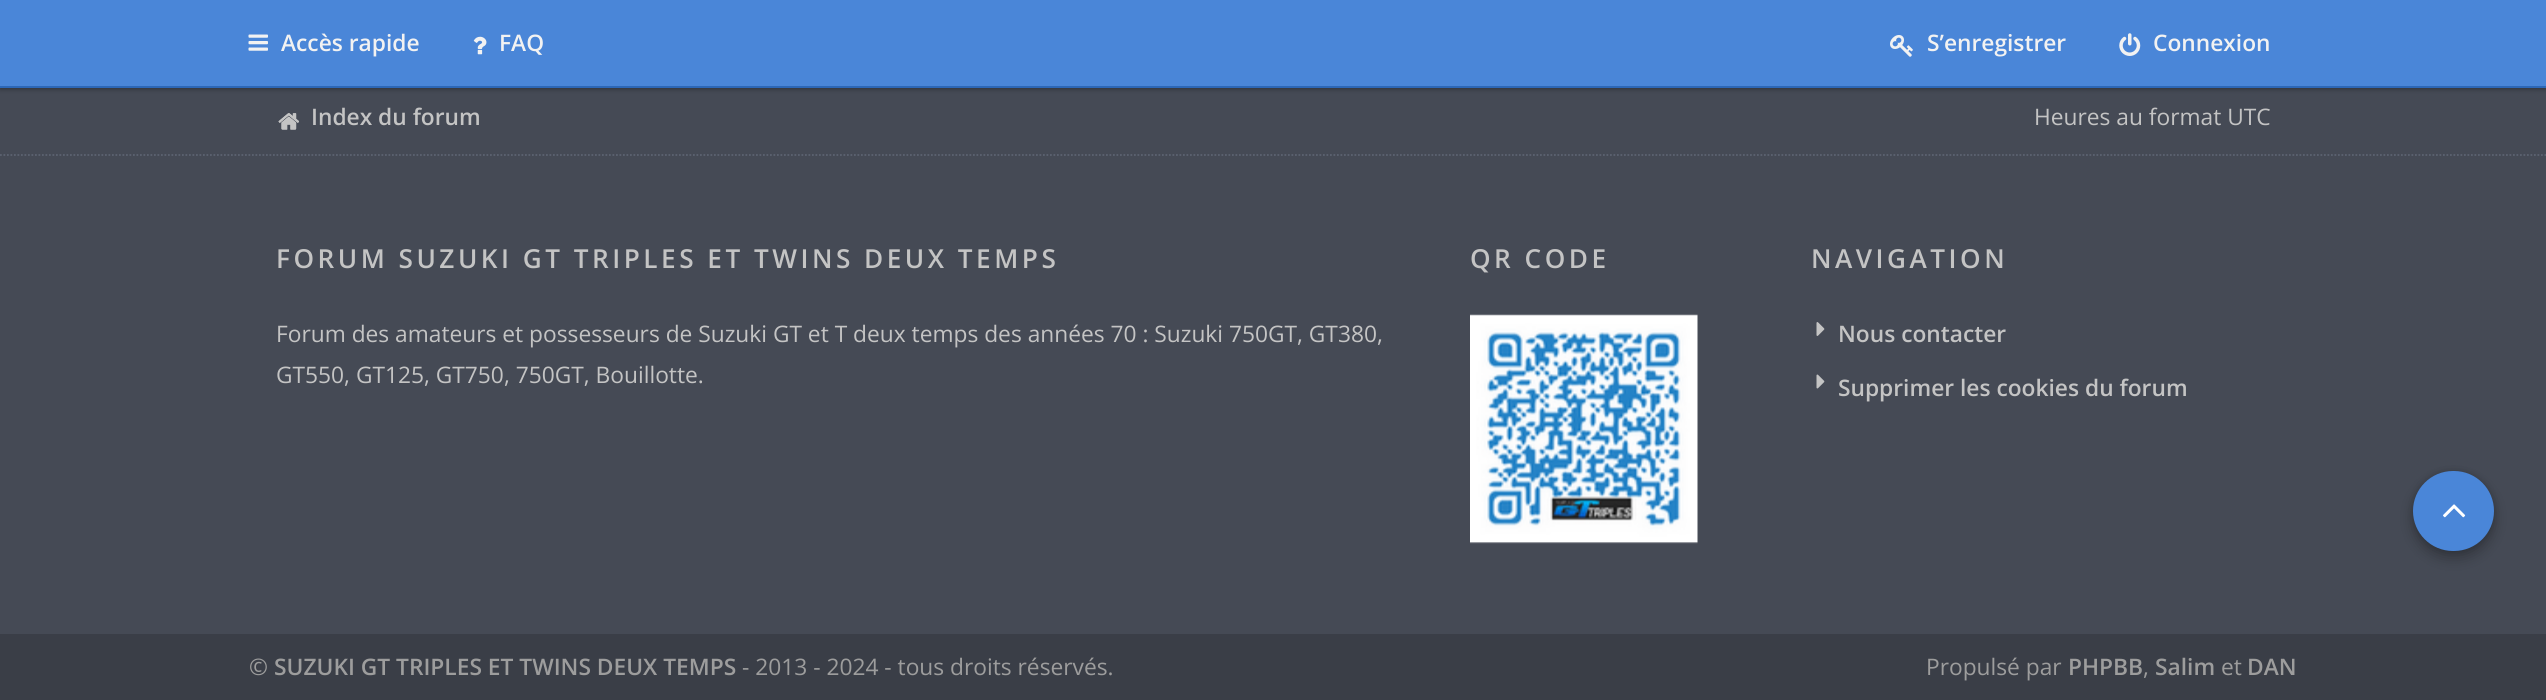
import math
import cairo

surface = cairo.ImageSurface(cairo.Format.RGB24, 2546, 700)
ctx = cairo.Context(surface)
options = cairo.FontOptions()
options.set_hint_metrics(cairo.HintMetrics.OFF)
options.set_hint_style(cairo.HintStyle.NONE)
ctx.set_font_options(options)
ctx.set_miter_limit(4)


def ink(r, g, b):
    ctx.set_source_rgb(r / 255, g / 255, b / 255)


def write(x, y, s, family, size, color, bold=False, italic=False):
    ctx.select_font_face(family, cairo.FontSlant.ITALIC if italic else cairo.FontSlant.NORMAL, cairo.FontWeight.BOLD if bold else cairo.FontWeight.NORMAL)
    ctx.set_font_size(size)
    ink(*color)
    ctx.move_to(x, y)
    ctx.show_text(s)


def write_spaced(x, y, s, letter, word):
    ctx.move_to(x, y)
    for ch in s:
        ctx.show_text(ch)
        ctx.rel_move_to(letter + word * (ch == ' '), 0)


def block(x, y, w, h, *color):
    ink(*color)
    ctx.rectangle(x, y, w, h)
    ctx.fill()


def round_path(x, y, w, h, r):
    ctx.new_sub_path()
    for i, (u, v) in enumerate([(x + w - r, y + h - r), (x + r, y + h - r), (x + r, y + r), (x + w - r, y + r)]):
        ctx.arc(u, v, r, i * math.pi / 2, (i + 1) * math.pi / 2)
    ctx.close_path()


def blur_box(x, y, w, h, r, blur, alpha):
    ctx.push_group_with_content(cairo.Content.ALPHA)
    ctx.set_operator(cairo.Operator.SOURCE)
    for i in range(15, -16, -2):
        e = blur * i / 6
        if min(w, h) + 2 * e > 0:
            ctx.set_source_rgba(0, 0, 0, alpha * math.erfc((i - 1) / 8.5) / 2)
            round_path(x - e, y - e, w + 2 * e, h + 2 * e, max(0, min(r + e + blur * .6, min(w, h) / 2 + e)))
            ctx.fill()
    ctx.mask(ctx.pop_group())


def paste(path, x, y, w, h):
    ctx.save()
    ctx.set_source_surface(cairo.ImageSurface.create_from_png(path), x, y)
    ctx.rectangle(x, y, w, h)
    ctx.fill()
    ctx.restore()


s1 = dict(family="Open Sans SemiBold", size=22.75, color=(242, 242, 242))
s2 = dict(family="Open Sans SemiBold", size=22.75, color=(196, 196, 196))
s3 = dict(family="Open Sans", size=22.75, color=(196, 196, 196))
s4 = dict(family="Open Sans", size=22.75, color=(157, 157, 157))
s5 = dict(family="Open Sans SemiBold", size=22.75, color=(157, 157, 157))

ink(69, 74, 85)
ctx.paint()
ink(0, 0, 0)
blur_box(0, 2, 2546, 87, 0, 2.5, 0.35)
block(0, 0, 2546, 86, 74, 134, 216)
block(0, 86, 2546, 2, 44, 103, 183)
paste("pic1.png", 248, 34, 20, 17)
write(281, 51, "Accès rapide", **s1)
paste("pic2.png", 473, 36, 14, 19)
write(499, 51, "FAQ", **s1)
paste("pic3.png", 1890, 35, 23, 22)
write(1927, 51, "S’enregistrer", **s1)
paste("pic4.png", 2119, 33, 22, 23)
write(2153, 51, "Connexion", **s1)
ctx.new_path()
ctx.move_to(0, 155)
ctx.line_to(2546, 155)
ink(92, 99, 113)
ctx.set_line_width(1.8)
ctx.set_dash([1.75, 1.75])
ctx.stroke()
paste("pic5.png", 278, 113, 21, 17)
paste("pic6.png", 278, 113, 21, 17)
write(311, 125, "Index du forum", **s2)
write(2034, 125, "Heures au format UTC", **s3)
ctx.select_font_face("Open Sans SemiBold")
ctx.set_font_size(26.15)
write_spaced(276, 268, "FORUM SUZUKI GT TRIPLES ET TWINS DEUX TEMPS", 3.5, 0)
write(276, 342, "Forum des amateurs et possesseurs de Suzuki GT et T deux temps des années 70 : Suzuki 750GT, GT380,", **s3)
write(276, 383, "GT550, GT125, GT750, 750GT, Bouillotte.", **s3)
ctx.select_font_face("Open Sans SemiBold")
ctx.set_font_size(26.15)
write_spaced(1470, 268, "QR CODE", 3.5, 0)
paste("pic7.png", 1470, 314, 228, 230)
write_spaced(1811, 268, "NAVIGATION", 3.5, 0)
paste("pic8.png", 1816, 322, 9, 14)
write(1838, 342, "Nous contacter", **s2)
paste("pic9.png", 1816, 374, 9, 15)
write(1838, 396, "Supprimer les cookies du forum", **s2)
block(0, 634, 2546, 66, 58, 62, 71)
write(249, 675, "©", **s4)
write(274, 675, "SUZUKI GT TRIPLES ET TWINS DEUX TEMPS", **s5)
write(742, 675, "- 2013 - 2024 - tous droits réservés.", **s4)
write(1926, 675, "Propulsé par", **s4)
write(2068, 675, "PHPBB", **s5)
write(2143, 675, ",", **s4)
write(2155, 675, "Salim", **s5)
write(2221, 675, "et", **s4)
write(2247, 675, "DAN", **s5)
ink(0, 0, 0)
blur_box(2413, 478, 81, 80, 40, 7, 0.28)
blur_box(2413, 471, 81, 80, 40, 3.5, 0.14)
ink(74, 134, 216)
round_path(2413, 471, 81, 80, 40)
ctx.fill()
paste("pic10.png", 2443, 504, 23, 14)
surface.write_to_png("screenshot.png")
